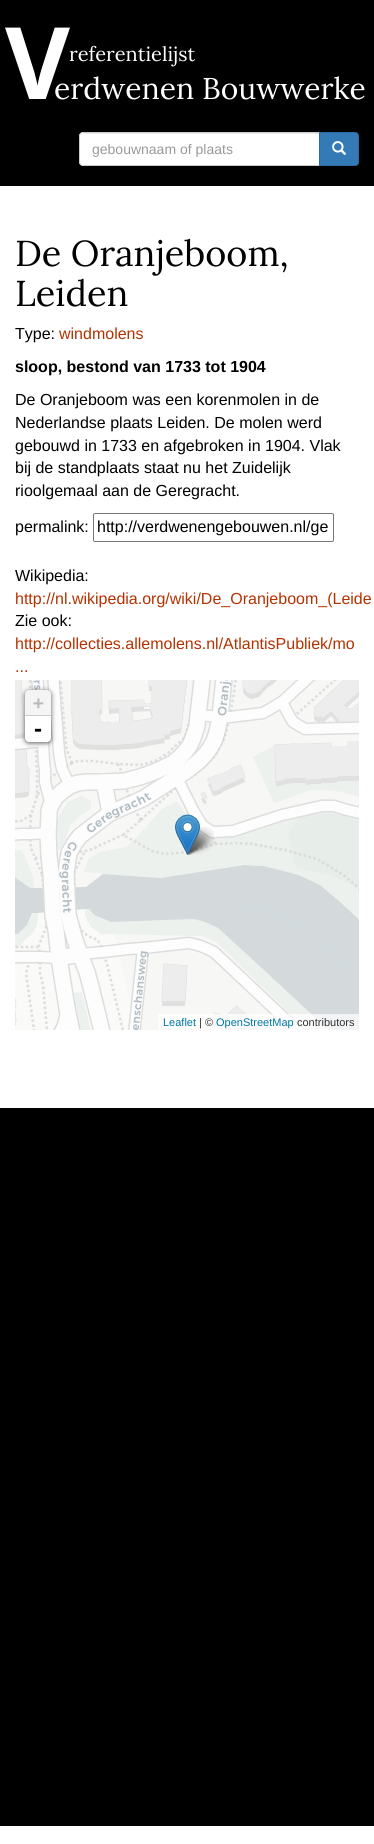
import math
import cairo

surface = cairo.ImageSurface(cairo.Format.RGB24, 374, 1844)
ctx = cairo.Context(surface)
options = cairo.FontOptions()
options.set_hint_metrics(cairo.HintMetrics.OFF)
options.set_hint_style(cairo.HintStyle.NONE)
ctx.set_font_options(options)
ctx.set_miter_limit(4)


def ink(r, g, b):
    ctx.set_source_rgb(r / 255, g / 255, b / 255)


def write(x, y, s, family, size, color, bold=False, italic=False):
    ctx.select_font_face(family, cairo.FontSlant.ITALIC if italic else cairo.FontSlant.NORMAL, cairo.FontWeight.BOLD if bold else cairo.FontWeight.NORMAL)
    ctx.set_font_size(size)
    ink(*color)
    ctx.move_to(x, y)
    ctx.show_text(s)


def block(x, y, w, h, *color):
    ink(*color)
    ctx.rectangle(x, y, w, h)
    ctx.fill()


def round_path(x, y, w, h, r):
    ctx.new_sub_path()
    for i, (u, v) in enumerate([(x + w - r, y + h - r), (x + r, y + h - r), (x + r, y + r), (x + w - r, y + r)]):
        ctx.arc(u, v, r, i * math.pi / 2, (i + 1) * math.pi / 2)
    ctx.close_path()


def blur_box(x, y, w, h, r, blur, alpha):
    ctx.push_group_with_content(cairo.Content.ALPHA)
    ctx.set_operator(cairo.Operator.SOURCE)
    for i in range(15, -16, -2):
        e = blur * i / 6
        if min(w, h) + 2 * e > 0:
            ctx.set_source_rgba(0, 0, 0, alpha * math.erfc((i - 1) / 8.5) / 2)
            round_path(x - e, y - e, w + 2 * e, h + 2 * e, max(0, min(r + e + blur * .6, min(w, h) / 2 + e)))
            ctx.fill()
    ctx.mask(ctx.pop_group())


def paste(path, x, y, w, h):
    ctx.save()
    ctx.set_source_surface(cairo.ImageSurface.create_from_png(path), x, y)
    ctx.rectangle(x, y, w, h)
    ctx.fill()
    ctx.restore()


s1 = dict(family="Noto Sans", size=100, color=(255, 255, 255), bold=True)
s2 = dict(family="Lora", size=30, color=(255, 255, 255))
s3 = dict(family="Lora", size=20, color=(255, 255, 255))
s4 = dict(family="Liberation Sans", size=14, color=(153, 153, 153))
s5 = dict(family="Lora", size=36, color=(0, 0, 0))
s6 = dict(family="Liberation Sans", size=16, color=(0, 0, 0))
s7 = dict(family="Liberation Sans", size=16, color=(180, 50, 0))
s8 = dict(family="Liberation Sans", size=16, color=(0, 0, 0), bold=True)
s9 = dict(family="DejaVu Sans Mono", size=18, color=(187, 187, 187), bold=True)
s10 = dict(family="DejaVu Sans Mono", size=20, color=(0, 0, 0), bold=True)
s11 = dict(family="Liberation Sans", size=11, color=(0, 120, 168))
s12 = dict(family="Liberation Sans", size=11, color=(51, 51, 51))

ink(0, 0, 0)
ctx.paint()
write(5, 99, "V", **s1)
write(54, 99, "erdwenen Bouwwerke", **s2)
write(69, 61, "referentielijst", **s3)
ctx.new_path()
ctx.move_to(83, 132)
ctx.line_to(319, 132)
ctx.line_to(319, 166)
ctx.line_to(83, 166)
ctx.curve_to(81, 166, 79, 164, 79, 162)
ctx.line_to(79, 136)
ctx.curve_to(79, 134, 81, 132, 83, 132)
ctx.close_path()
ctx.fill()
ink(236, 236, 236)
ctx.new_path()
ctx.move_to(83, 134)
ctx.line_to(319, 134)
ctx.line_to(319, 133)
ctx.line_to(83, 133)
ctx.curve_to(81, 133, 80, 135, 80, 137)
ctx.curve_to(80, 135, 81, 134, 83, 134)
ctx.close_path()
ctx.fill()
ink(204, 204, 204)
ctx.set_fill_rule(cairo.FillRule.EVEN_ODD)
ctx.new_path()
ctx.move_to(83, 132)
ctx.line_to(319, 132)
ctx.line_to(319, 166)
ctx.line_to(83, 166)
ctx.curve_to(81, 166, 79, 164, 79, 162)
ctx.line_to(79, 136)
ctx.curve_to(79, 134, 81, 132, 83, 132)
ctx.close_path()
ctx.move_to(83, 133)
ctx.line_to(319, 133)
ctx.line_to(319, 165)
ctx.line_to(83, 165)
ctx.curve_to(81, 165, 80, 164, 80, 162)
ctx.line_to(80, 136)
ctx.curve_to(80, 134, 81, 133, 83, 133)
ctx.close_path()
ctx.fill()
write(92, 154, "gebouwnaam of plaats", **s4)
ink(51, 122, 183)
ctx.new_path()
ctx.move_to(319.5, 132.5)
ctx.line_to(355, 132.5)
ctx.curve_to(357, 132.5, 358.5, 134, 358.5, 136)
ctx.line_to(358.5, 162)
ctx.curve_to(358.5, 164, 357, 165.5, 355, 165.5)
ctx.line_to(319.5, 165.5)
ctx.close_path()
ctx.fill_preserve()
ink(46, 109, 164)
ctx.set_line_width(1)
ctx.stroke()
paste("pic1.png", 332, 141, 15, 14)
block(0, 186, 374, 922, 255, 255, 255)
write(15, 266, "De Oranjeboom,", **s5)
write(15, 306, "Leiden", **s5)
write(15, 339, "Type:", **s6)
write(59, 339, "windmolens", **s7)
write(15, 372, "sloop, bestond van 1733 tot 1904", **s8)
write(15, 405, "De Oranjeboom was een korenmolen in de", **s6)
write(15, 428, "Nederlandse plaats Leiden. De molen werd", **s6)
write(15, 451, "gebouwd in 1733 en afgebroken in 1904. Vlak", **s6)
write(15, 473, "bij de standplaats staat nu het Zuidelijk", **s6)
write(15, 496, "rioolgemaal aan de Geregracht.", **s6)
write(15, 532, "permalink:", **s6)
round_path(93.5, 513.5, 240, 28, 1.5)
ink(118, 118, 118)
ctx.stroke()
write(97, 532, "http://verdwenengebouwen.nl/ge", **s6)
write(15, 581, "Wikipedia:", **s6)
write(15, 604, "http://nl.wikipedia.org/wiki/De_Oranjeboom_(Leide", **s7)
write(15, 626, "Zie ook:", **s6)
write(15, 649, "http://collecties.allemolens.nl/AtlantisPubliek/mo", **s7)
write(15, 672, "...", **s7)
paste("pic2.png", 15, 680, 224, 155)
paste("pic3.png", 239, 680, 120, 155)
paste("pic4.png", 15, 835, 224, 195)
paste("pic5.png", 239, 835, 120, 195)
paste("pic8.png", 185, 827, 29, 28)
paste("pic9.png", 185, 827, 29, 28)
paste("pic6.png", 175, 814, 25, 41)
paste("pic7.png", 175, 814, 25, 41)
ink(0, 0, 0)
blur_box(25, 691, 26, 52, 4, 2.5, 0.65)
ink(244, 244, 244)
ctx.new_path()
ctx.move_to(29, 690)
ctx.line_to(47, 690)
ctx.curve_to(49, 690, 51, 692, 51, 694)
ctx.line_to(51, 716)
ctx.line_to(25, 716)
ctx.line_to(25, 694)
ctx.curve_to(25, 692, 27, 690, 29, 690)
ctx.close_path()
ctx.fill()
block(25, 715, 26, 1, 204, 204, 204)
write(33, 709, "+", **s9)
ink(255, 255, 255)
ctx.new_path()
ctx.move_to(25, 716)
ctx.line_to(51, 716)
ctx.line_to(51, 738)
ctx.curve_to(51, 740, 49, 742, 47, 742)
ctx.line_to(29, 742)
ctx.curve_to(27, 742, 25, 740, 25, 738)
ctx.close_path()
ctx.fill()
write(32, 736, "-", **s10)
ctx.set_source_rgba(1, 1, 1, 0.7)
ctx.rectangle(158, 1014, 201, 16)
ctx.fill()
write(163, 1026, "Leaflet", **s11)
write(199, 1026, "| ©", **s12)
write(216, 1026, "OpenStreetMap", **s11)
write(297, 1026, "contributors", **s12)
block(0, 1826, 374, 18, 255, 255, 255)
surface.write_to_png("screenshot.png")
